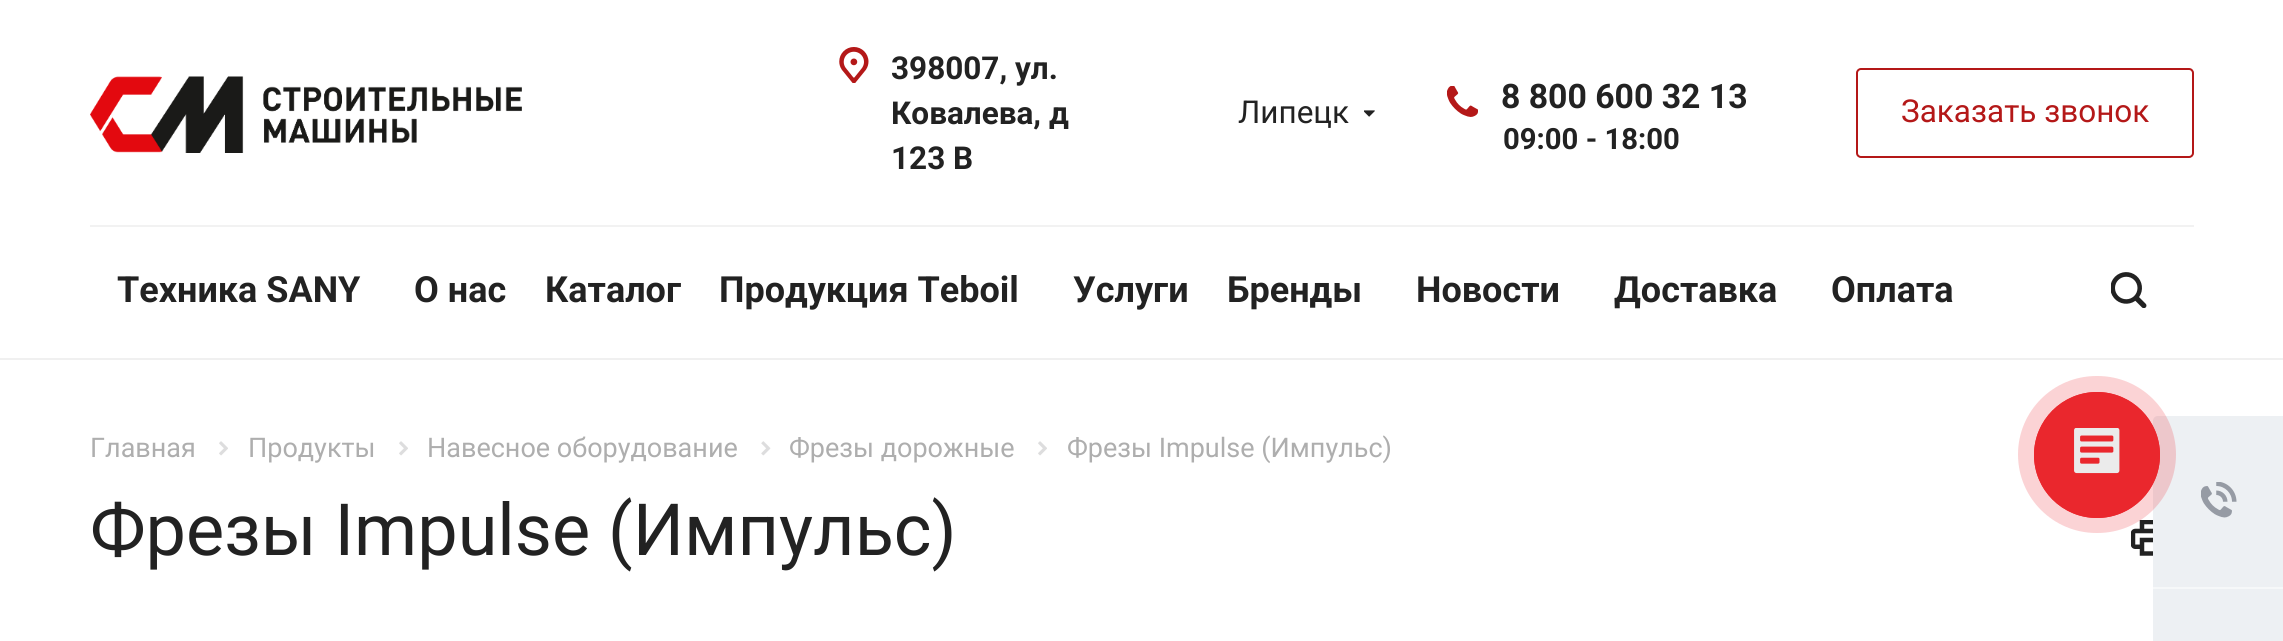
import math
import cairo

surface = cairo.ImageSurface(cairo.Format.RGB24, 2283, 641)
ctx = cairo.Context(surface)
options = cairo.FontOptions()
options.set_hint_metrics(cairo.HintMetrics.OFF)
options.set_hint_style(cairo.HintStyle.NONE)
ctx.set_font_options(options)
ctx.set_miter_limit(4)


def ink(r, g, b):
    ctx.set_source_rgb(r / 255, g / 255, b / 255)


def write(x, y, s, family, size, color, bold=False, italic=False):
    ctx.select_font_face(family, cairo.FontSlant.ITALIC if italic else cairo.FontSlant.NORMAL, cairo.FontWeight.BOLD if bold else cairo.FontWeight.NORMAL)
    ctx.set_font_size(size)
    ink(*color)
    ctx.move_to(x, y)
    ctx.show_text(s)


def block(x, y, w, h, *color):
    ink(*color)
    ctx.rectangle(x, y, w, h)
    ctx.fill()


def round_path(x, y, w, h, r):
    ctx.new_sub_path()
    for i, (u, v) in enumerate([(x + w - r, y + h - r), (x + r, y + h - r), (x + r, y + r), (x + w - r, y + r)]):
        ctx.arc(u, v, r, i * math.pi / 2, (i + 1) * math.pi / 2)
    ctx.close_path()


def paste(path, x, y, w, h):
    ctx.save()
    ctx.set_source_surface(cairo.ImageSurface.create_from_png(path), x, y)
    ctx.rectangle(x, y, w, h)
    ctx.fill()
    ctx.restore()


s1 = dict(family="Roboto", size=31.5, color=(34, 34, 34), bold=True)
s2 = dict(family="Roboto", size=31.5, color=(34, 34, 34))
s3 = dict(family="Roboto", size=33.75, color=(34, 34, 34), bold=True)
s4 = dict(family="Roboto", size=29.25, color=(34, 34, 34), bold=True)
s5 = dict(family="Roboto", size=31.5, color=(180, 24, 24))
s6 = dict(family="Roboto", size=36, color=(34, 34, 34), bold=True)
s7 = dict(family="Roboto", size=27, color=(174, 174, 174))
s8 = dict(family="Roboto", size=72, color=(34, 34, 34))

ink(255, 255, 255)
ctx.paint()
paste("pic1.png", 90, 76, 432, 77)
paste("pic2.png", 839, 47, 30, 36)
write(891, 79, "398007, ул.", **s1)
write(891, 124, "Ковалева, д", **s1)
write(891, 169, "123 B", **s1)
write(1238, 123, "Липецк", **s2)
paste("pic3.png", 1364, 110, 11, 7)
paste("pic4.png", 1447, 86, 31, 31)
write(1501, 108, "8 800 600 32 13", **s3)
write(1503, 149, "09:00 - 18:00", **s4)
round_path(1857, 69, 336, 88, 4)
ink(180, 24, 24)
ctx.stroke()
write(1901, 122, "Заказать звонок", **s5)
block(90, 225, 2104, 2, 242, 242, 242)
write(117, 302, "Техника SANY", **s6)
write(414, 302, "О нас", **s6)
write(545, 302, "Каталог", **s6)
write(719, 302, "Продукция Teboil", **s6)
write(1073, 302, "Услуги", **s6)
write(1227, 302, "Бренды", **s6)
write(1416, 302, "Новости", **s6)
write(1614, 302, "Доставка", **s6)
write(1831, 302, "Оплата", **s6)
paste("pic5.png", 2111, 272, 36, 36)
block(0, 358, 2283, 2, 240, 240, 240)
write(90, 457, "Главная", **s7)
paste("pic6.png", 219, 441, 9, 15)
write(248, 457, "Продукты", **s7)
paste("pic6.png", 399, 441, 9, 15)
write(427, 457, "Навесное оборудование", **s7)
paste("pic7.png", 761, 441, 10, 15)
write(789, 457, "Фрезы дорожные", **s7)
paste("pic6.png", 1038, 441, 9, 15)
write(1067, 457, "Фрезы Impulse (Импульс)", **s7)
write(90, 555, "Фрезы Impulse (Импульс)", **s8)
paste("pic8.png", 2131, 520, 22, 36)
ink(237, 240, 243)
ctx.new_path()
ctx.move_to(2158, 416)
ctx.line_to(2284, 416)
ctx.line_to(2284, 587)
ctx.line_to(2153, 587)
ctx.line_to(2153, 421)
ctx.curve_to(2153, 418, 2155, 416, 2158, 416)
ctx.close_path()
ctx.fill()
ctx.set_source_rgba(0.918, 0.153, 0.176, 0.2)
round_path(2018, 376, 158, 157, 78.5)
ctx.fill()
ctx.arc(2097, 455, 62, 0, 2 * math.pi)
ink(234, 39, 45)
ctx.stroke()
ctx.arc(2097, 455, 63, 0, 2 * math.pi)
ctx.fill()
paste("pic9.png", 2074, 428, 46, 46)
paste("pic10.png", 2201, 482, 36, 36)
block(2153, 589, 130, 52, 237, 240, 243)
block(2153, 587, 130, 2, 246, 248, 249)
surface.write_to_png("screenshot.png")
